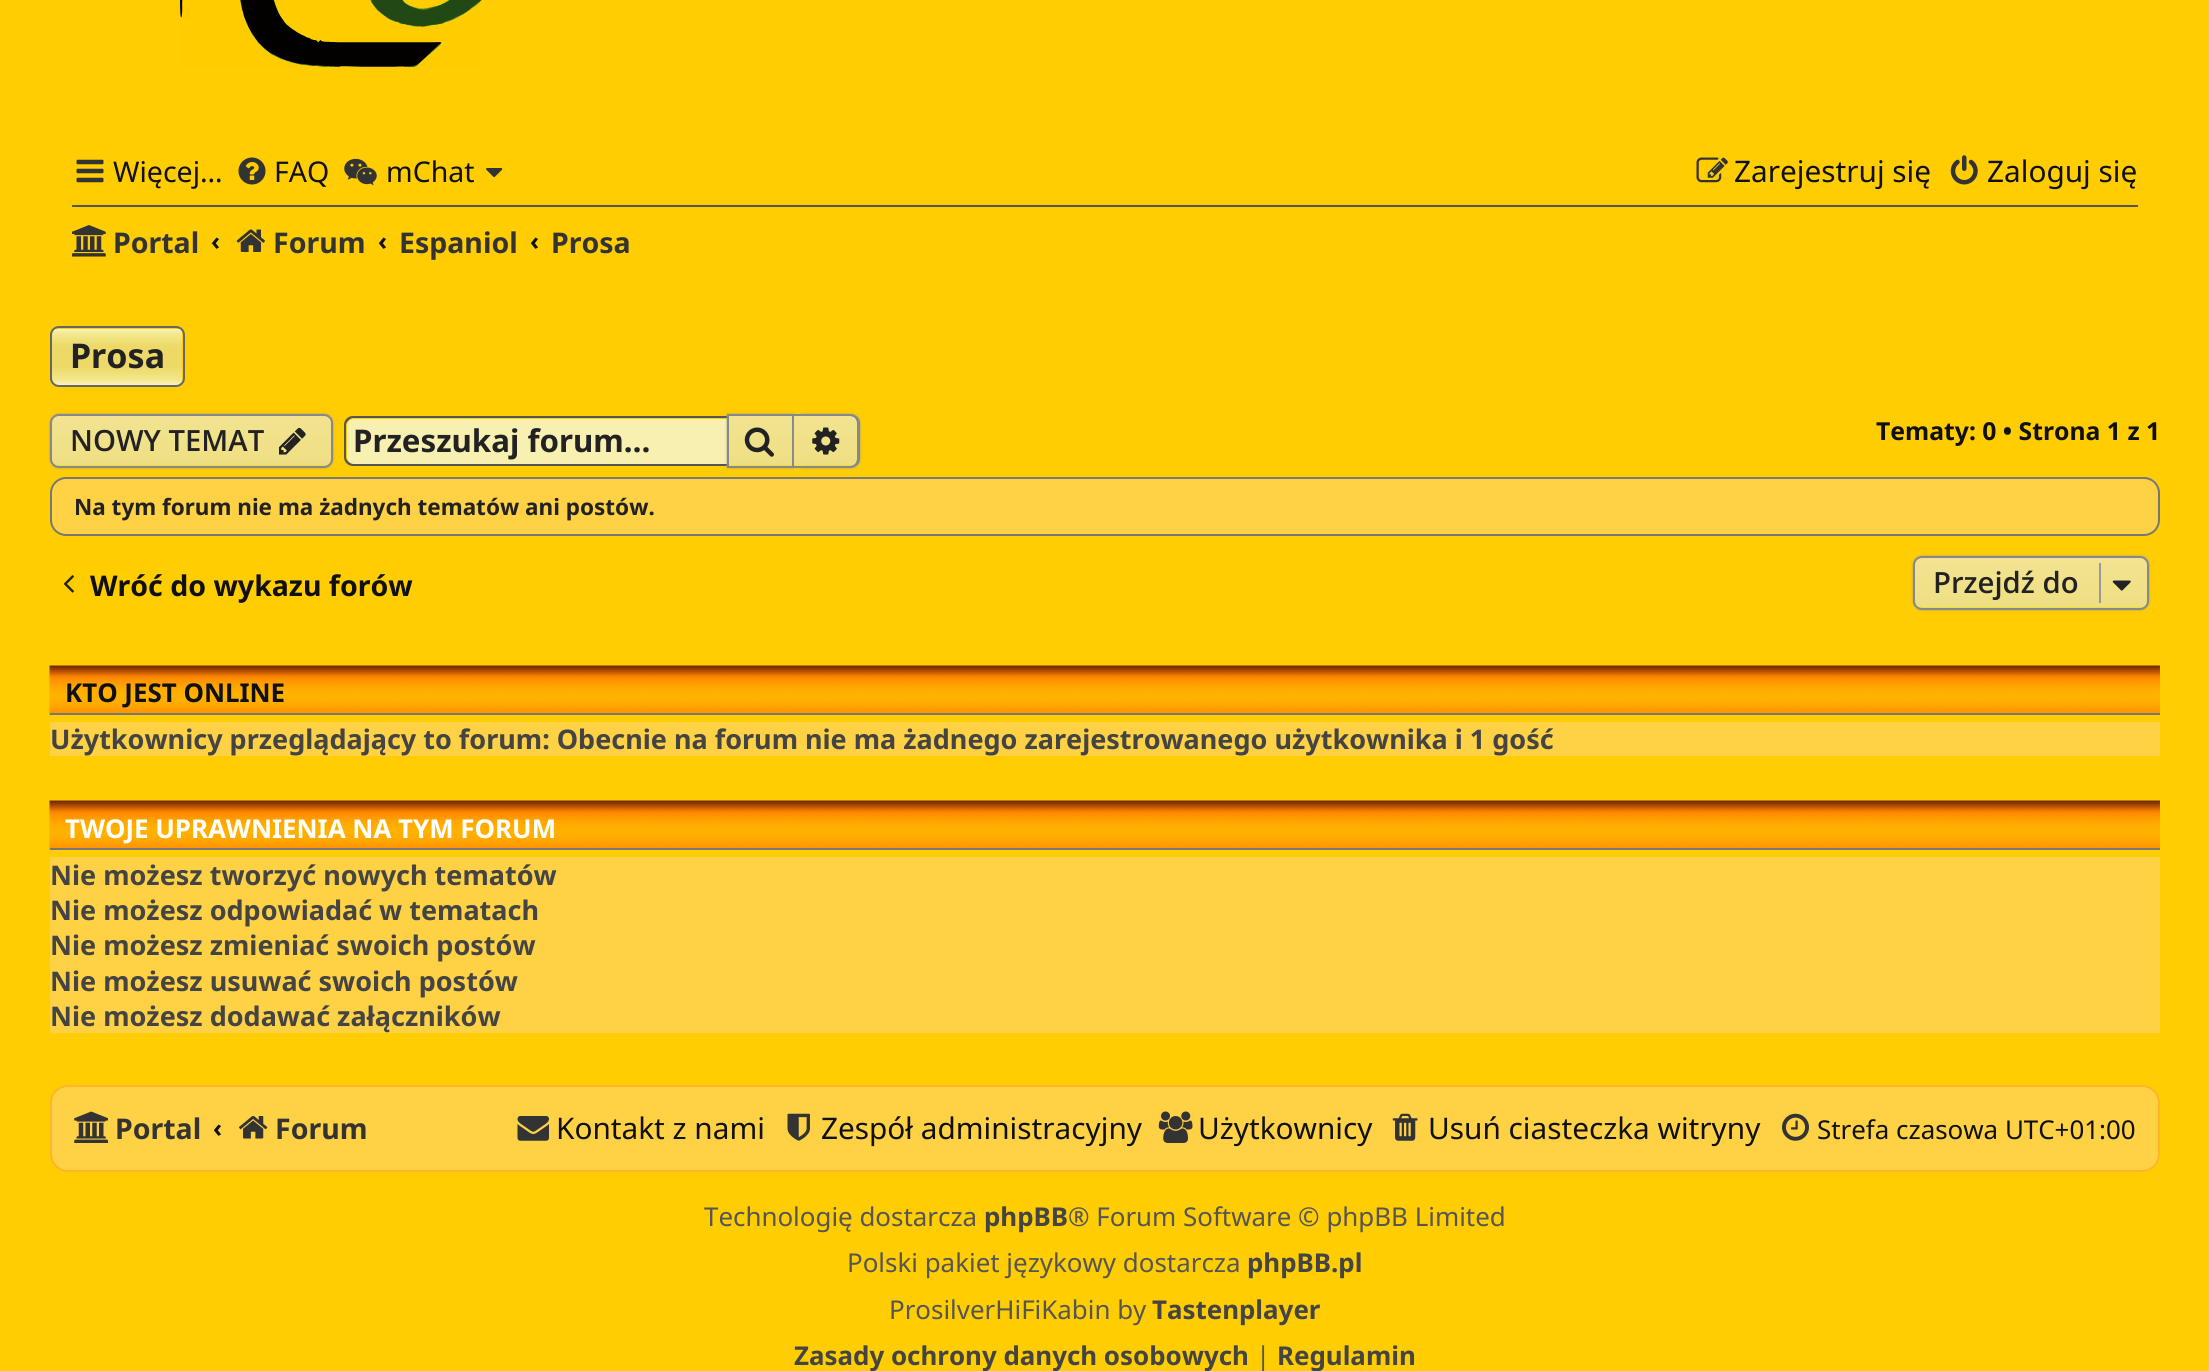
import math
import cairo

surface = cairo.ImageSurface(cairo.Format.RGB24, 2209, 1371)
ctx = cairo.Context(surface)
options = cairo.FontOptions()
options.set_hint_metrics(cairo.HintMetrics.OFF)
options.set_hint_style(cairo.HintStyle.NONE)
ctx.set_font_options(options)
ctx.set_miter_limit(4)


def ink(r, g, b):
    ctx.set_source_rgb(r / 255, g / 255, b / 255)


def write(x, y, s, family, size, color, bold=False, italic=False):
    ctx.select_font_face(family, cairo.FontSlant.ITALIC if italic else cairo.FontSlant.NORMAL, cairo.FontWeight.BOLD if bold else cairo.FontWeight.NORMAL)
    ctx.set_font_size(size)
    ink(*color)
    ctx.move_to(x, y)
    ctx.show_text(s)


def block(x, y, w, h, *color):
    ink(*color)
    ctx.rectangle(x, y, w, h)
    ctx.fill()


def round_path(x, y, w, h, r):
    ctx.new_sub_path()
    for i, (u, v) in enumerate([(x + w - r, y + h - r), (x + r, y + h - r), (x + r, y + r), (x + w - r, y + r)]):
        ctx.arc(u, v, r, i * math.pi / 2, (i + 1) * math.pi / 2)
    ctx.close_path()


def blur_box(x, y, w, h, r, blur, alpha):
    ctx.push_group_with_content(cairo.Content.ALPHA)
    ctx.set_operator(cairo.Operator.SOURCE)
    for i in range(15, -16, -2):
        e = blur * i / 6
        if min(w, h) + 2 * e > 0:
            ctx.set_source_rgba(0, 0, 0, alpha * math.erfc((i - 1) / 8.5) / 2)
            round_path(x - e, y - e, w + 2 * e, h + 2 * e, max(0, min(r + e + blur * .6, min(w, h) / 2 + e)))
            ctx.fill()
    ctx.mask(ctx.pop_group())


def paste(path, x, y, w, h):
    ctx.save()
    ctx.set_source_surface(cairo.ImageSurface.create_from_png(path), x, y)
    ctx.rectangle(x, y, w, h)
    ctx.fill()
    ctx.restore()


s1 = dict(family="Noto Sans", size=28.5, color=(16, 16, 16))
s2 = dict(family="Noto Sans", size=29.75, color=(16, 16, 16))
s3 = dict(family="Noto Sans", size=28.5, color=(51, 51, 51), bold=True)
s4 = dict(family="Noto Sans", size=24.75, color=(16, 16, 16), bold=True)
s5 = dict(family="Noto Sans", size=34, color=(34, 34, 34), bold=True)
s6 = dict(family="Open Sans SemiBold", size=29.25, color=(34, 34, 34))
s7 = dict(family="Noto Sans", size=31.25, color=(34, 34, 34), bold=True)
s8 = dict(family="Noto Sans", size=22.5, color=(34, 34, 34), bold=True)
s9 = dict(family="Noto Sans", size=28.5, color=(16, 16, 16), bold=True)
s10 = dict(family="Noto Sans", size=25.9, color=(16, 16, 16), bold=True)
s11 = dict(family="Noto Sans", size=27, color=(68, 68, 68), bold=True)
s12 = dict(family="Noto Sans", size=25.9, color=(255, 255, 255), bold=True)
s13 = dict(family="Noto Sans", size=25.9, color=(16, 16, 16))
s14 = dict(family="Noto Sans", size=25.9, color=(85, 85, 85))
s15 = dict(family="Noto Sans", size=25.9, color=(68, 68, 68), bold=True)

ink(255, 205, 1)
ctx.paint()
paste("pic1.png", 180, 0, 302, 67)
paste("pic2.png", 76, 159, 28, 24)
write(113, 182, "Więcej…", **s1)
paste("pic3.png", 238, 157, 28, 28)
write(274, 182, "FAQ", **s1)
paste("pic4.png", 344, 158, 33, 28)
write(386, 182, "mChat", **s1)
paste("pic5.png", 486, 168, 17, 10)
paste("pic6.png", 1696, 157, 32, 26)
write(1734, 182, "Zarejestruj się", **s2)
paste("pic7.png", 1950, 155, 28, 30)
write(1987, 182, "Zaloguj się", **s2)
block(72, 205, 2066, 2, 85, 85, 85)
paste("pic8.png", 72, 225, 34, 32)
write(113, 253, "Portal", **s3)
write(211, 250, "‹", **s4)
paste("pic9.png", 236, 229, 29, 23)
write(273, 253, "Forum", **s3)
write(378, 250, "‹", **s4)
write(399, 253, "Espaniol", **s3)
write(530, 250, "‹", **s4)
write(551, 253, "Prosa", **s3)
ctx.save()
round_path(50, 326, 135, 61, 9)
ctx.clip()
gradient = cairo.LinearGradient(117, 329, 117, 385)
gradient.add_color_stop_rgba(0, 0.976, 0.953, 0.753, 1)
gradient.add_color_stop_rgba(0.09, 0.957, 0.906, 0.553, 1)
gradient.add_color_stop_rgba(0.31, 0.929, 0.851, 0.408, 1)
gradient.add_color_stop_rgba(0.68, 0.929, 0.851, 0.408, 1)
gradient.add_color_stop_rgba(0.91, 0.957, 0.906, 0.553, 1)
gradient.add_color_stop_rgba(1, 0.976, 0.953, 0.753, 1)
ctx.set_source(gradient)
ctx.rectangle(52, 329, 130, 56)
ctx.fill()
ctx.restore()
round_path(51, 327, 133, 59, 8)
ink(102, 102, 102)
ctx.stroke()
write(70, 368, "Prosa", **s5)
ink(153, 153, 153)
blur_box(50, 414, 283, 54, 9, 1, 1)
ctx.save()
round_path(50, 414, 283, 54, 9)
ctx.clip()
gradient = cairo.LinearGradient(191, 416, 191, 466)
gradient.add_color_stop_rgba(0, 0.969, 0.937, 0.718, 1)
gradient.add_color_stop_rgba(0.01, 0.949, 0.89, 0.569, 1)
gradient.add_color_stop_rgba(0.96, 0.937, 0.875, 0.514, 1)
gradient.add_color_stop_rgba(1, 0.945, 0.855, 0.212, 1)
ctx.set_source(gradient)
ctx.rectangle(52, 416, 279, 50)
ctx.fill()
ctx.restore()
round_path(51, 415, 281, 52, 8)
ink(136, 136, 136)
ctx.stroke()
write(70, 451, "NOWY TEMAT", **s6)
paste("pic10.png", 279, 427, 27, 28)
ink(248, 240, 177)
ctx.new_path()
ctx.move_to(354, 419)
ctx.line_to(727, 419)
ctx.line_to(727, 464)
ctx.line_to(354, 464)
ctx.curve_to(350, 464, 347, 461, 347, 457)
ctx.line_to(347, 426)
ctx.curve_to(347, 422, 350, 419, 354, 419)
ctx.close_path()
ctx.fill()
ink(85, 85, 85)
ctx.set_fill_rule(cairo.FillRule.EVEN_ODD)
ctx.new_path()
ctx.move_to(353, 416)
ctx.line_to(727, 416)
ctx.line_to(727, 466)
ctx.line_to(353, 466)
ctx.curve_to(348, 466, 344, 462, 344, 457)
ctx.line_to(344, 425)
ctx.curve_to(344, 420, 348, 416, 353, 416)
ctx.close_path()
ctx.move_to(353, 418)
ctx.line_to(727, 418)
ctx.line_to(727, 464)
ctx.line_to(353, 464)
ctx.curve_to(350, 464, 346, 460, 346, 457)
ctx.line_to(346, 425)
ctx.curve_to(346, 422, 350, 418, 353, 418)
ctx.close_path()
ctx.fill()
write(353, 452, "Przeszukaj forum…", **s7)
ink(153, 153, 153)
blur_box(727, 414, 67, 54, 0, 1, 1)
gradient = cairo.LinearGradient(761, 416, 761, 466)
gradient.add_color_stop_rgba(0, 0.969, 0.937, 0.718, 1)
gradient.add_color_stop_rgba(0.01, 0.949, 0.89, 0.569, 1)
gradient.add_color_stop_rgba(0.96, 0.937, 0.875, 0.514, 1)
gradient.add_color_stop_rgba(1, 0.945, 0.855, 0.212, 1)
ctx.set_source(gradient)
ctx.rectangle(729, 416, 63, 50)
ctx.fill()
ctx.rectangle(728, 415, 65, 52)
ink(136, 136, 136)
ctx.stroke()
paste("pic11.png", 744, 427, 30, 30)
ink(153, 153, 153)
blur_box(794, 414, 66, 54, 9, 1, 1)
gradient = cairo.LinearGradient(826, 416, 826, 466)
gradient.add_color_stop_rgba(0, 0.969, 0.937, 0.718, 1)
gradient.add_color_stop_rgba(0.01, 0.949, 0.89, 0.569, 1)
gradient.add_color_stop_rgba(0.96, 0.937, 0.875, 0.514, 1)
gradient.add_color_stop_rgba(1, 0.945, 0.855, 0.212, 1)
ctx.set_source(gradient)
ctx.new_path()
ctx.move_to(794, 416)
ctx.line_to(850, 416)
ctx.curve_to(854, 416, 857, 419, 857, 423)
ctx.line_to(857, 459)
ctx.curve_to(857, 463, 854, 466, 850, 466)
ctx.line_to(794, 466)
ctx.close_path()
ctx.fill()
ink(136, 136, 136)
ctx.new_path()
ctx.move_to(794, 414)
ctx.line_to(850, 414)
ctx.curve_to(855, 414, 860, 418, 860, 423)
ctx.line_to(860, 459)
ctx.curve_to(860, 464, 855, 468, 850, 468)
ctx.line_to(794, 468)
ctx.close_path()
ctx.move_to(794, 416)
ctx.line_to(850, 416)
ctx.curve_to(854, 416, 857, 419, 857, 423)
ctx.line_to(857, 459)
ctx.curve_to(857, 463, 854, 466, 850, 466)
ctx.line_to(794, 466)
ctx.close_path()
ctx.fill()
paste("pic12.png", 812, 427, 28, 28)
write(1876, 440, "Tematy: 0 • Strona 1 z 1", **s4)
ink(255, 209, 69)
round_path(51, 478, 2108, 57, 15)
ctx.fill_preserve()
ink(119, 119, 119)
ctx.stroke()
write(74, 515, "Na tym forum nie ma żadnych tematów ani postów.", **s8)
paste("pic13.png", 63, 575, 11, 18)
write(90, 596, "Wróć do wykazu forów", **s9)
ink(153, 153, 153)
blur_box(1913, 556, 236, 54, 9, 1, 1)
ctx.save()
ctx.set_fill_rule(cairo.FillRule.WINDING)
round_path(1913, 556, 236, 54, 9)
ctx.clip()
gradient = cairo.LinearGradient(2031, 558, 2031, 608)
gradient.add_color_stop_rgba(0, 0.969, 0.937, 0.718, 1)
gradient.add_color_stop_rgba(0.01, 0.949, 0.89, 0.569, 1)
gradient.add_color_stop_rgba(0.96, 0.937, 0.875, 0.514, 1)
gradient.add_color_stop_rgba(1, 0.945, 0.855, 0.212, 1)
ctx.set_source(gradient)
ctx.rectangle(1915, 558, 232, 50)
ctx.fill()
ctx.restore()
round_path(1914, 557, 234, 52, 8)
ink(136, 136, 136)
ctx.stroke()
write(1933, 593, "Przejdź do", **s6)
block(2099, 563, 2, 40, 153, 153, 153)
paste("pic14.png", 2112, 580, 19, 11)
paste("pic15.png", 49, 665, 2111, 50)
block(50, 713, 2110, 2, 119, 119, 119)
write(65, 702, "KTO JEST ONLINE", **s10)
block(50, 722, 2110, 34, 255, 209, 69)
write(50, 749, "Użytkownicy przeglądający to forum: Obecnie na forum nie ma żadnego zarejestrowanego użytkownika i 1 gość", **s11)
paste("pic16.png", 49, 800, 2111, 50)
block(50, 848, 2110, 2, 119, 119, 119)
write(65, 838, "TWOJE UPRAWNIENIA NA TYM FORUM", **s12)
block(50, 857, 2110, 176, 255, 209, 69)
write(50, 885, "Nie możesz tworzyć nowych tematów", **s11)
write(50, 920, "Nie możesz odpowiadać w tematach", **s11)
write(50, 955, "Nie możesz zmieniać swoich postów", **s11)
write(50, 991, "Nie możesz usuwać swoich postów", **s11)
write(50, 1026, "Nie możesz dodawać załączników", **s11)
ink(255, 209, 69)
round_path(51, 1086, 2108, 85, 17)
ctx.fill_preserve()
ink(255, 181, 41)
ctx.stroke()
paste("pic17.png", 74, 1111, 34, 32)
write(115, 1139, "Portal", **s3)
write(213, 1137, "‹", **s4)
paste("pic18.png", 239, 1116, 29, 23)
write(275, 1139, "Forum", **s3)
paste("pic19.png", 517, 1116, 32, 25)
write(556, 1139, "Kontakt z nami", **s2)
paste("pic20.png", 787, 1113, 23, 28)
write(821, 1139, "Zespół administracyjny", **s2)
paste("pic21.png", 1158, 1111, 35, 32)
write(1198, 1139, "Użytkownicy", **s2)
paste("pic22.png", 1392, 1113, 26, 28)
write(1428, 1139, "Usuń ciasteczka witryny", **s2)
paste("pic23.png", 1782, 1113, 27, 28)
write(1817, 1139, "Strefa czasowa UTC+01:00", **s13)
write(704, 1226, "Technologię dostarcza", **s14)
write(984, 1226, "phpBB", **s15)
write(1068, 1226, "® Forum Software © phpBB Limited", **s14)
write(847, 1272, "Polski pakiet językowy dostarcza", **s14)
write(1247, 1272, "phpBB.pl", **s15)
write(889, 1319, "ProsilverHiFiKabin by", **s14)
write(1152, 1319, "Tastenplayer", **s15)
write(794, 1365, "Zasady ochrony danych osobowych", **s15)
write(1256, 1365, "|", **s14)
write(1277, 1365, "Regulamin", **s15)
surface.write_to_png("screenshot.png")
